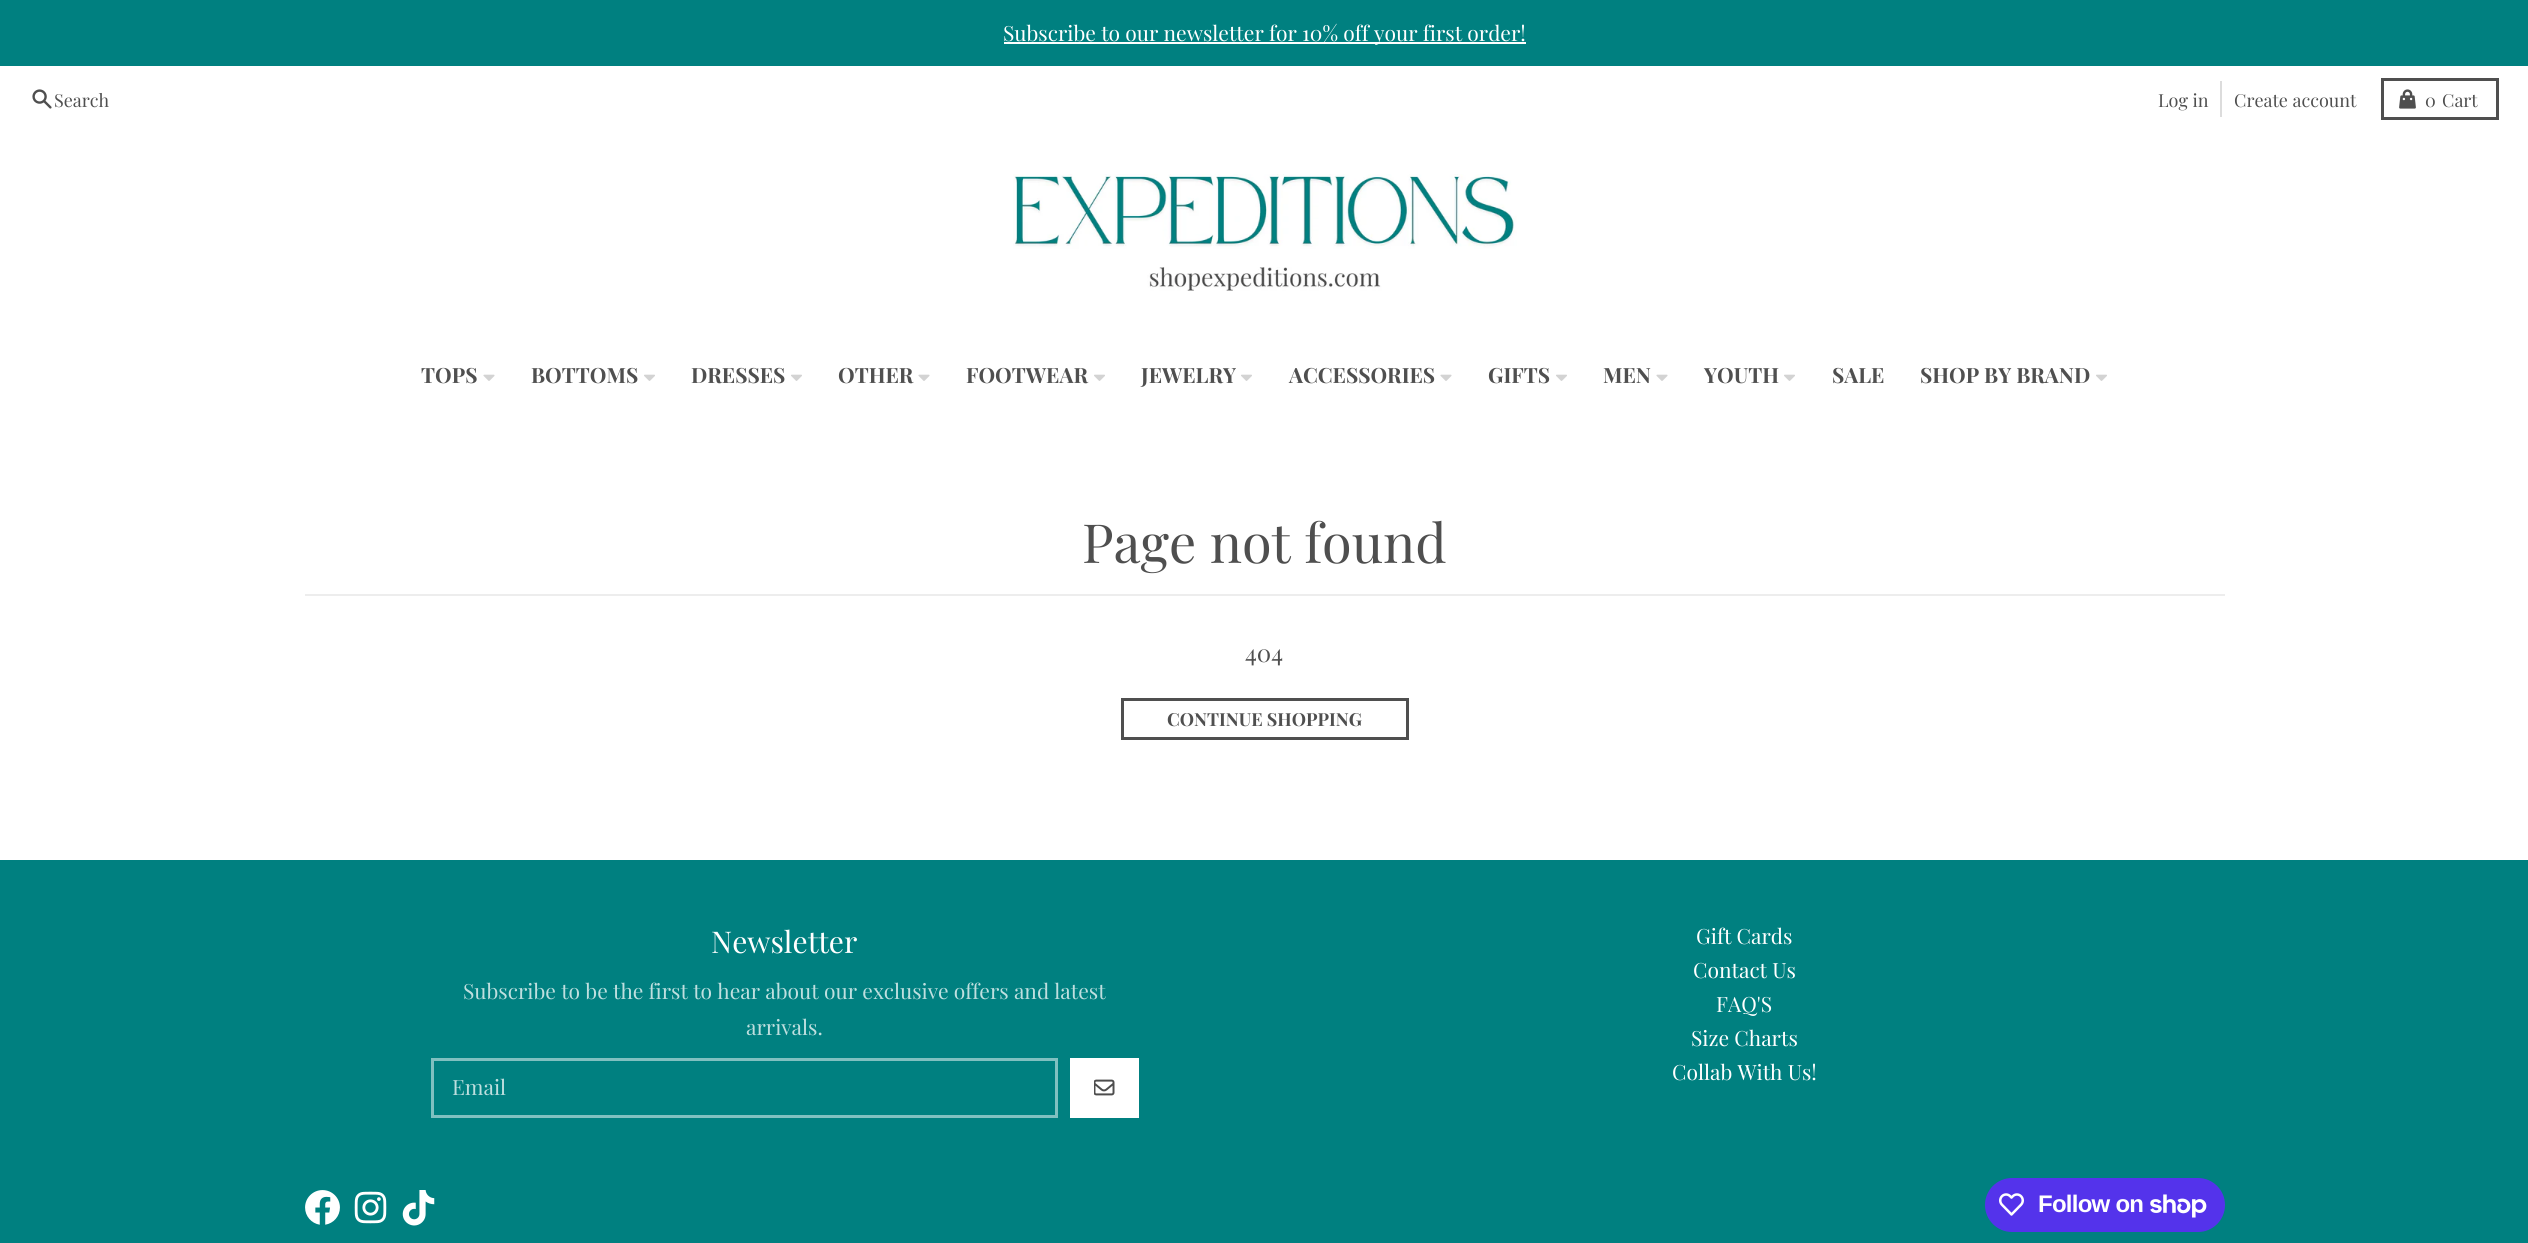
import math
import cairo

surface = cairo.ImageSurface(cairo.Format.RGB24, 2528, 1243)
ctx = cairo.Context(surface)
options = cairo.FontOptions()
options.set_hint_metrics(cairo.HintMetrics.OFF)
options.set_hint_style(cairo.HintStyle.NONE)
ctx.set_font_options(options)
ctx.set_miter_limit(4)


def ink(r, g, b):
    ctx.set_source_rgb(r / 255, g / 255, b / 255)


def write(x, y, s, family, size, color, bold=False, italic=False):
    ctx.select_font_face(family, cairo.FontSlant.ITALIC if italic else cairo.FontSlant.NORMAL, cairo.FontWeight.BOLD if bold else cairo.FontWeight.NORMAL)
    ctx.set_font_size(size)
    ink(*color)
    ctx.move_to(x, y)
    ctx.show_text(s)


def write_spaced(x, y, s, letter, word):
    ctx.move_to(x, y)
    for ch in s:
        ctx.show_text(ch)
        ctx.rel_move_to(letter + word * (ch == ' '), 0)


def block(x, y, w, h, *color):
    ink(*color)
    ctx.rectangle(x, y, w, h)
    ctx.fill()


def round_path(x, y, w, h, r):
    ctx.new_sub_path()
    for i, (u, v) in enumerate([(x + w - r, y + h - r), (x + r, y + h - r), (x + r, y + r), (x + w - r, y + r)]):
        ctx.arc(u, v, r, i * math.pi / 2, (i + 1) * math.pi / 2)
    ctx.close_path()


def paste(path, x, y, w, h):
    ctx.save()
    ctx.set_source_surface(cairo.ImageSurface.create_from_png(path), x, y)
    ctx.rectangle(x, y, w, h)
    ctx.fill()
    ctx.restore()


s1 = dict(family="Playfair Display", size=21, color=(255, 255, 255))
s2 = dict(family="Playfair Display", size=18, color=(79, 79, 79))
s3 = dict(family="Playfair Display", size=21, color=(79, 79, 79), bold=True)
s4 = dict(family="Playfair Display", size=54, color=(79, 79, 79))
s5 = dict(family="Playfair Display", size=24, color=(79, 79, 79))
s6 = dict(family="Playfair Display", size=18, color=(79, 79, 79), bold=True)
s7 = dict(family="Playfair Display", size=30, color=(255, 255, 255))
s8 = dict(family="Playfair Display", size=21, color=(191, 223, 223))

ink(0, 128, 128)
ctx.paint()
block(1004, 42, 522, 2, 255, 255, 255)
write(1003, 41, "Subscribe to our newsletter for 10% off your first order!", **s1)
block(0, 66, 2528, 794, 255, 255, 255)
paste("pic1.png", 32, 89, 20, 20)
write(54, 107, "Search", **s2)
write(2158, 107, "Log in", **s2)
block(2220, 81, 2, 36, 220, 220, 220)
write(2234, 107, "Create account", **s2)
ctx.rectangle(2382.5, 79.5, 115, 39)
ctx.set_line_width(3)
ctx.stroke()
paste("pic2.png", 2399, 89, 17, 20)
write(2425, 107, "0", **s2)
write(2442, 107, "Cart", **s2)
paste("pic3.png", 1013, 174, 504, 117)
write(421, 383, "TOPS", **s3)
paste("pic4.png", 483, 374, 12, 7)
write(531, 383, "BOTTOMS", **s3)
paste("pic5.png", 644, 374, 11, 7)
write(691, 383, "DRESSES", **s3)
paste("pic5.png", 791, 374, 11, 7)
write(838, 383, "OTHER", **s3)
paste("pic4.png", 918, 374, 12, 7)
write(966, 383, "FOOTWEAR", **s3)
paste("pic5.png", 1094, 374, 11, 7)
write(1141, 383, "JEWELRY", **s3)
paste("pic5.png", 1241, 374, 11, 7)
write(1289, 383, "ACCESSORIES", **s3)
paste("pic4.png", 1440, 374, 12, 7)
write(1488, 383, "GIFTS", **s3)
paste("pic5.png", 1556, 374, 11, 7)
write(1603, 383, "MEN", **s3)
paste("pic4.png", 1656, 374, 12, 7)
write(1704, 383, "YOUTH", **s3)
paste("pic5.png", 1784, 374, 11, 7)
write(1832, 383, "SALE", **s3)
write(1920, 383, "SHOP BY BRAND", **s3)
paste("pic5.png", 2096, 374, 11, 7)
block(305, 594, 1920, 2, 237, 237, 237)
write(1082, 563, "Page not found", **s4)
write(1245, 662, "404", **s5)
ctx.rectangle(1122.5, 699.5, 285, 39)
ctx.stroke()
write(1167, 726, "CONTINUE SHOPPING", **s6)
write(711, 953, "Newsletter", **s7)
write(463, 999, "Subscribe to be the first to hear about our exclusive offers and latest", **s8)
write(746, 1035, "arrivals.", **s8)
ctx.rectangle(432.5, 1059.5, 624, 57)
ink(128, 192, 192)
ctx.stroke()
write(452, 1095, "Email", **s8)
block(1070, 1058, 69, 60, 255, 255, 255)
paste("pic6.png", 1094, 1079, 21, 17)
write(1696, 944, "Gift Cards", **s1)
write(1693, 978, "Contact Us", **s1)
write(1716, 1012, "FAQ'S", **s1)
write(1691, 1046, "Size Charts", **s1)
write(1672, 1080, "Collab With Us!", **s1)
paste("pic7.png", 305, 1190, 35, 35)
paste("pic8.png", 354, 1191, 33, 33)
paste("pic9.png", 402, 1190, 33, 36)
ink(84, 51, 235)
round_path(1985, 1178, 240, 54, 27)
ctx.fill()
paste("pic10.png", 1999, 1193, 25, 23)
ctx.select_font_face("Liberation Sans", cairo.FontSlant.NORMAL, cairo.FontWeight.BOLD)
ctx.set_font_size(24)
ink(255, 255, 255)
write_spaced(2038, 1212, "Follow on", -0.75, 0)
paste("pic11.png", 2150, 1194, 57, 24)
surface.write_to_png("screenshot.png")
